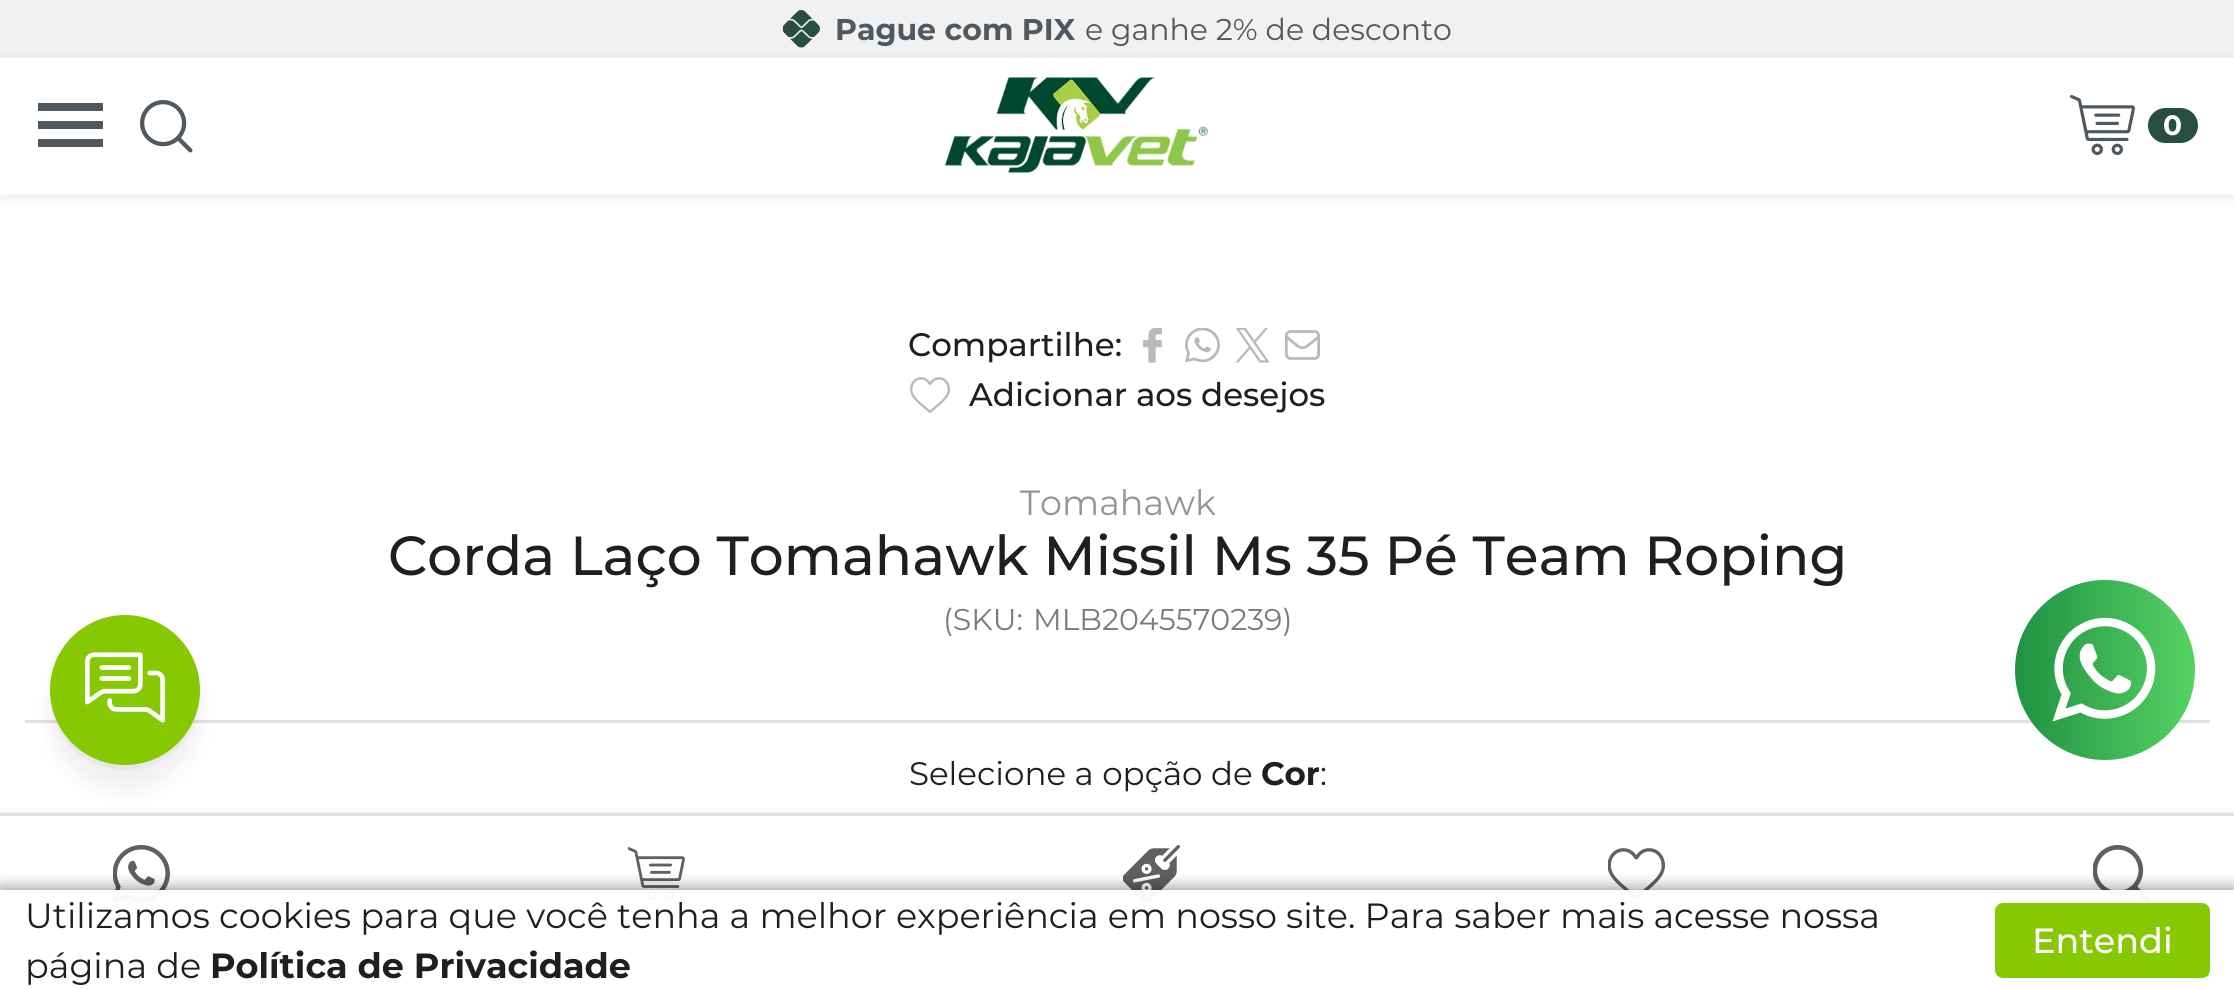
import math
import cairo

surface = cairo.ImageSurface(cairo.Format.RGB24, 2234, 989)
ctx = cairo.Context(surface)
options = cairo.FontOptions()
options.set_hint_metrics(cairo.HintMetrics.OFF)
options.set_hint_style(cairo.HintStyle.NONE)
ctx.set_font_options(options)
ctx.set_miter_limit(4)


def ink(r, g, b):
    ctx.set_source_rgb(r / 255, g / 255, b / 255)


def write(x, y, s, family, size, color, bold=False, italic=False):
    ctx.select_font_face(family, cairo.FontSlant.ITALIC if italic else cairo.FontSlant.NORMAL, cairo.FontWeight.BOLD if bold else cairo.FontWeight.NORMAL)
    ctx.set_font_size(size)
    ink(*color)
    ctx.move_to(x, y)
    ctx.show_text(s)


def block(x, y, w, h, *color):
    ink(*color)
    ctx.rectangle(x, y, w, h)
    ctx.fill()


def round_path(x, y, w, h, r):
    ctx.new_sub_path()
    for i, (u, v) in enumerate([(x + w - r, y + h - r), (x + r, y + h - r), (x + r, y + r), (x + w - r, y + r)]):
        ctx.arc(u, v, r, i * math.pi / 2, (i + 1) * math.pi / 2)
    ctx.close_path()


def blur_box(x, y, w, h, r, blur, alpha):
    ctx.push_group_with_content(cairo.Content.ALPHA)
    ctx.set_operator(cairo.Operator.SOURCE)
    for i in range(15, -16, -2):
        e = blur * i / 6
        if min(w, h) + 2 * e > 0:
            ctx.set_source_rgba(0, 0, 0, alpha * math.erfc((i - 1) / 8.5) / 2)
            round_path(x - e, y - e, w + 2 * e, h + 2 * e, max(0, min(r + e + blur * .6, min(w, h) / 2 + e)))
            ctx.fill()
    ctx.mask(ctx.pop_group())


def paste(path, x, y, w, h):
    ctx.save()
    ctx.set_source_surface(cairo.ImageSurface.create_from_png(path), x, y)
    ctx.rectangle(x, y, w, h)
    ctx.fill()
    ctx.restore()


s1 = dict(family="Montserrat", size=30, color=(81, 89, 96), bold=True)
s2 = dict(family="Montserrat", size=30, color=(81, 89, 96))
s3 = dict(family="Montserrat", size=28, color=(255, 255, 255), bold=True)
s4 = dict(family="Montserrat Medium", size=32.5, color=(32, 31, 31))
s5 = dict(family="Montserrat", size=35, color=(148, 148, 148))
s6 = dict(family="Montserrat Medium", size=55, color=(32, 31, 31))
s7 = dict(family="Montserrat", size=30, color=(123, 123, 123))
s8 = dict(family="Montserrat", size=32.5, color=(32, 31, 31))
s9 = dict(family="Montserrat", size=32.5, color=(32, 31, 31), bold=True)
s10 = dict(family="Montserrat", size=35, color=(32, 31, 31))
s11 = dict(family="Montserrat", size=35, color=(32, 31, 31), bold=True)
s12 = dict(family="Montserrat Medium", size=35, color=(255, 255, 255))

ink(255, 255, 255)
ctx.paint()
block(0, 0, 2234, 58, 241, 241, 241)
paste("pic1.png", 783, 10, 37, 38)
write(835, 40, "Pague com PIX", **s1)
write(1085, 40, "e ganhe 2% de desconto", **s2)
ctx.save()
ctx.set_fill_rule(cairo.FillRule.EVEN_ODD)
ctx.new_path()
ctx.move_to(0, 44)
ctx.line_to(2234, 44)
ctx.line_to(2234, 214)
ctx.line_to(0, 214)
ctx.close_path()
ctx.move_to(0, 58)
ctx.line_to(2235, 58)
ctx.line_to(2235, 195)
ctx.line_to(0, 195)
ctx.close_path()
ctx.clip()
ink(82, 82, 82)
blur_box(0, 60, 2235, 138, 0, 5, 0.13)
ctx.restore()
ctx.set_source_rgba(0.937, 0.937, 0.937, 0.19)
ctx.rectangle(0, 193, 2234, 2)
ctx.fill()
block(38, 139, 65, 8, 81, 89, 96)
block(38, 121, 65, 8, 81, 89, 96)
block(38, 103, 65, 8, 81, 89, 96)
paste("pic2.png", 140, 100, 53, 53)
paste("pic3.png", 944, 77, 264, 96)
paste("pic4.png", 2070, 94, 65, 62)
ink(38, 79, 63)
round_path(2148, 108, 50, 35, 17.5)
ctx.fill()
write(2163, 135, "0", **s3)
write(908, 356, "Compartilhe:", **s4)
paste("pic5.png", 1143, 328, 19, 35)
paste("pic6.png", 1185, 328, 35, 35)
paste("pic7.png", 1235, 328, 35, 35)
paste("pic8.png", 1285, 330, 35, 30)
paste("pic9.png", 910, 377, 40, 36)
write(969, 406, "Adicionar aos desejos", **s4)
block(25, 720, 2185, 3, 225, 225, 225)
write(1020, 515, "Tomahawk", **s5)
write(388, 575, "Corda Laço Tomahawk Missil Ms 35 Pé Team Roping", **s6)
write(943, 630, "(SKU:", **s7)
write(1033, 630, "MLB2045570239)", **s7)
write(909, 785, "Selecione a opção de", **s8)
write(1261, 785, "Cor", **s9)
write(1320, 785, ":", **s8)
ink(103, 103, 103)
blur_box(50, 640, 150, 150, 75, 10, 0.1)
ink(0, 0, 0)
blur_box(50, 620, 150, 150, 75, 1, 0.04)
ink(134, 201, 3)
ctx.arc(125, 690, 75, 0, 2 * math.pi)
ctx.fill()
paste("pic10.png", 85, 652, 80, 71)
gradient = cairo.LinearGradient(2015, 670, 2195, 670)
gradient.add_color_stop_rgba(0, 0.125, 0.569, 0.259, 1)
gradient.add_color_stop_rgba(1, 0.337, 0.824, 0.388, 1)
ctx.set_source(gradient)
ctx.arc(2105, 670, 90, 0, 2 * math.pi)
ctx.fill()
paste("pic11.png", 2052, 617, 104, 105)
ink(82, 82, 82)
blur_box(0, 813, 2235, 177, 0, 5, 0.08)
block(0, 816, 2234, 173, 255, 255, 255)
block(0, 813, 2234, 3, 226, 226, 226)
paste("pic12.png", 113, 845, 57, 58)
paste("pic13.png", 628, 847, 57, 54)
paste("pic14.png", 1123, 845, 57, 58)
paste("pic15.png", 1608, 848, 57, 52)
paste("pic16.png", 2093, 845, 57, 58)
ctx.save()
ctx.rectangle(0, 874, 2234, 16)
ctx.clip()
ink(0, 0, 0)
blur_box(0, 890, 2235, 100, 0, 9, 0.5)
ctx.restore()
ctx.set_source_rgba(1, 1, 1, 0.95)
ctx.rectangle(113, 890, 2037, 13)
ctx.fill()
write(25, 928, "Utilizamos cookies para que você tenha a melhor experiência em nosso site. Para saber mais acesse nossa", **s10)
write(25, 978, "página de", **s10)
write(210, 978, "Política de Privacidade", **s11)
ink(134, 201, 3)
round_path(1995, 903, 215, 75, 8)
ctx.fill()
write(2032, 953, "Entendi", **s12)
surface.write_to_png("screenshot.png")
